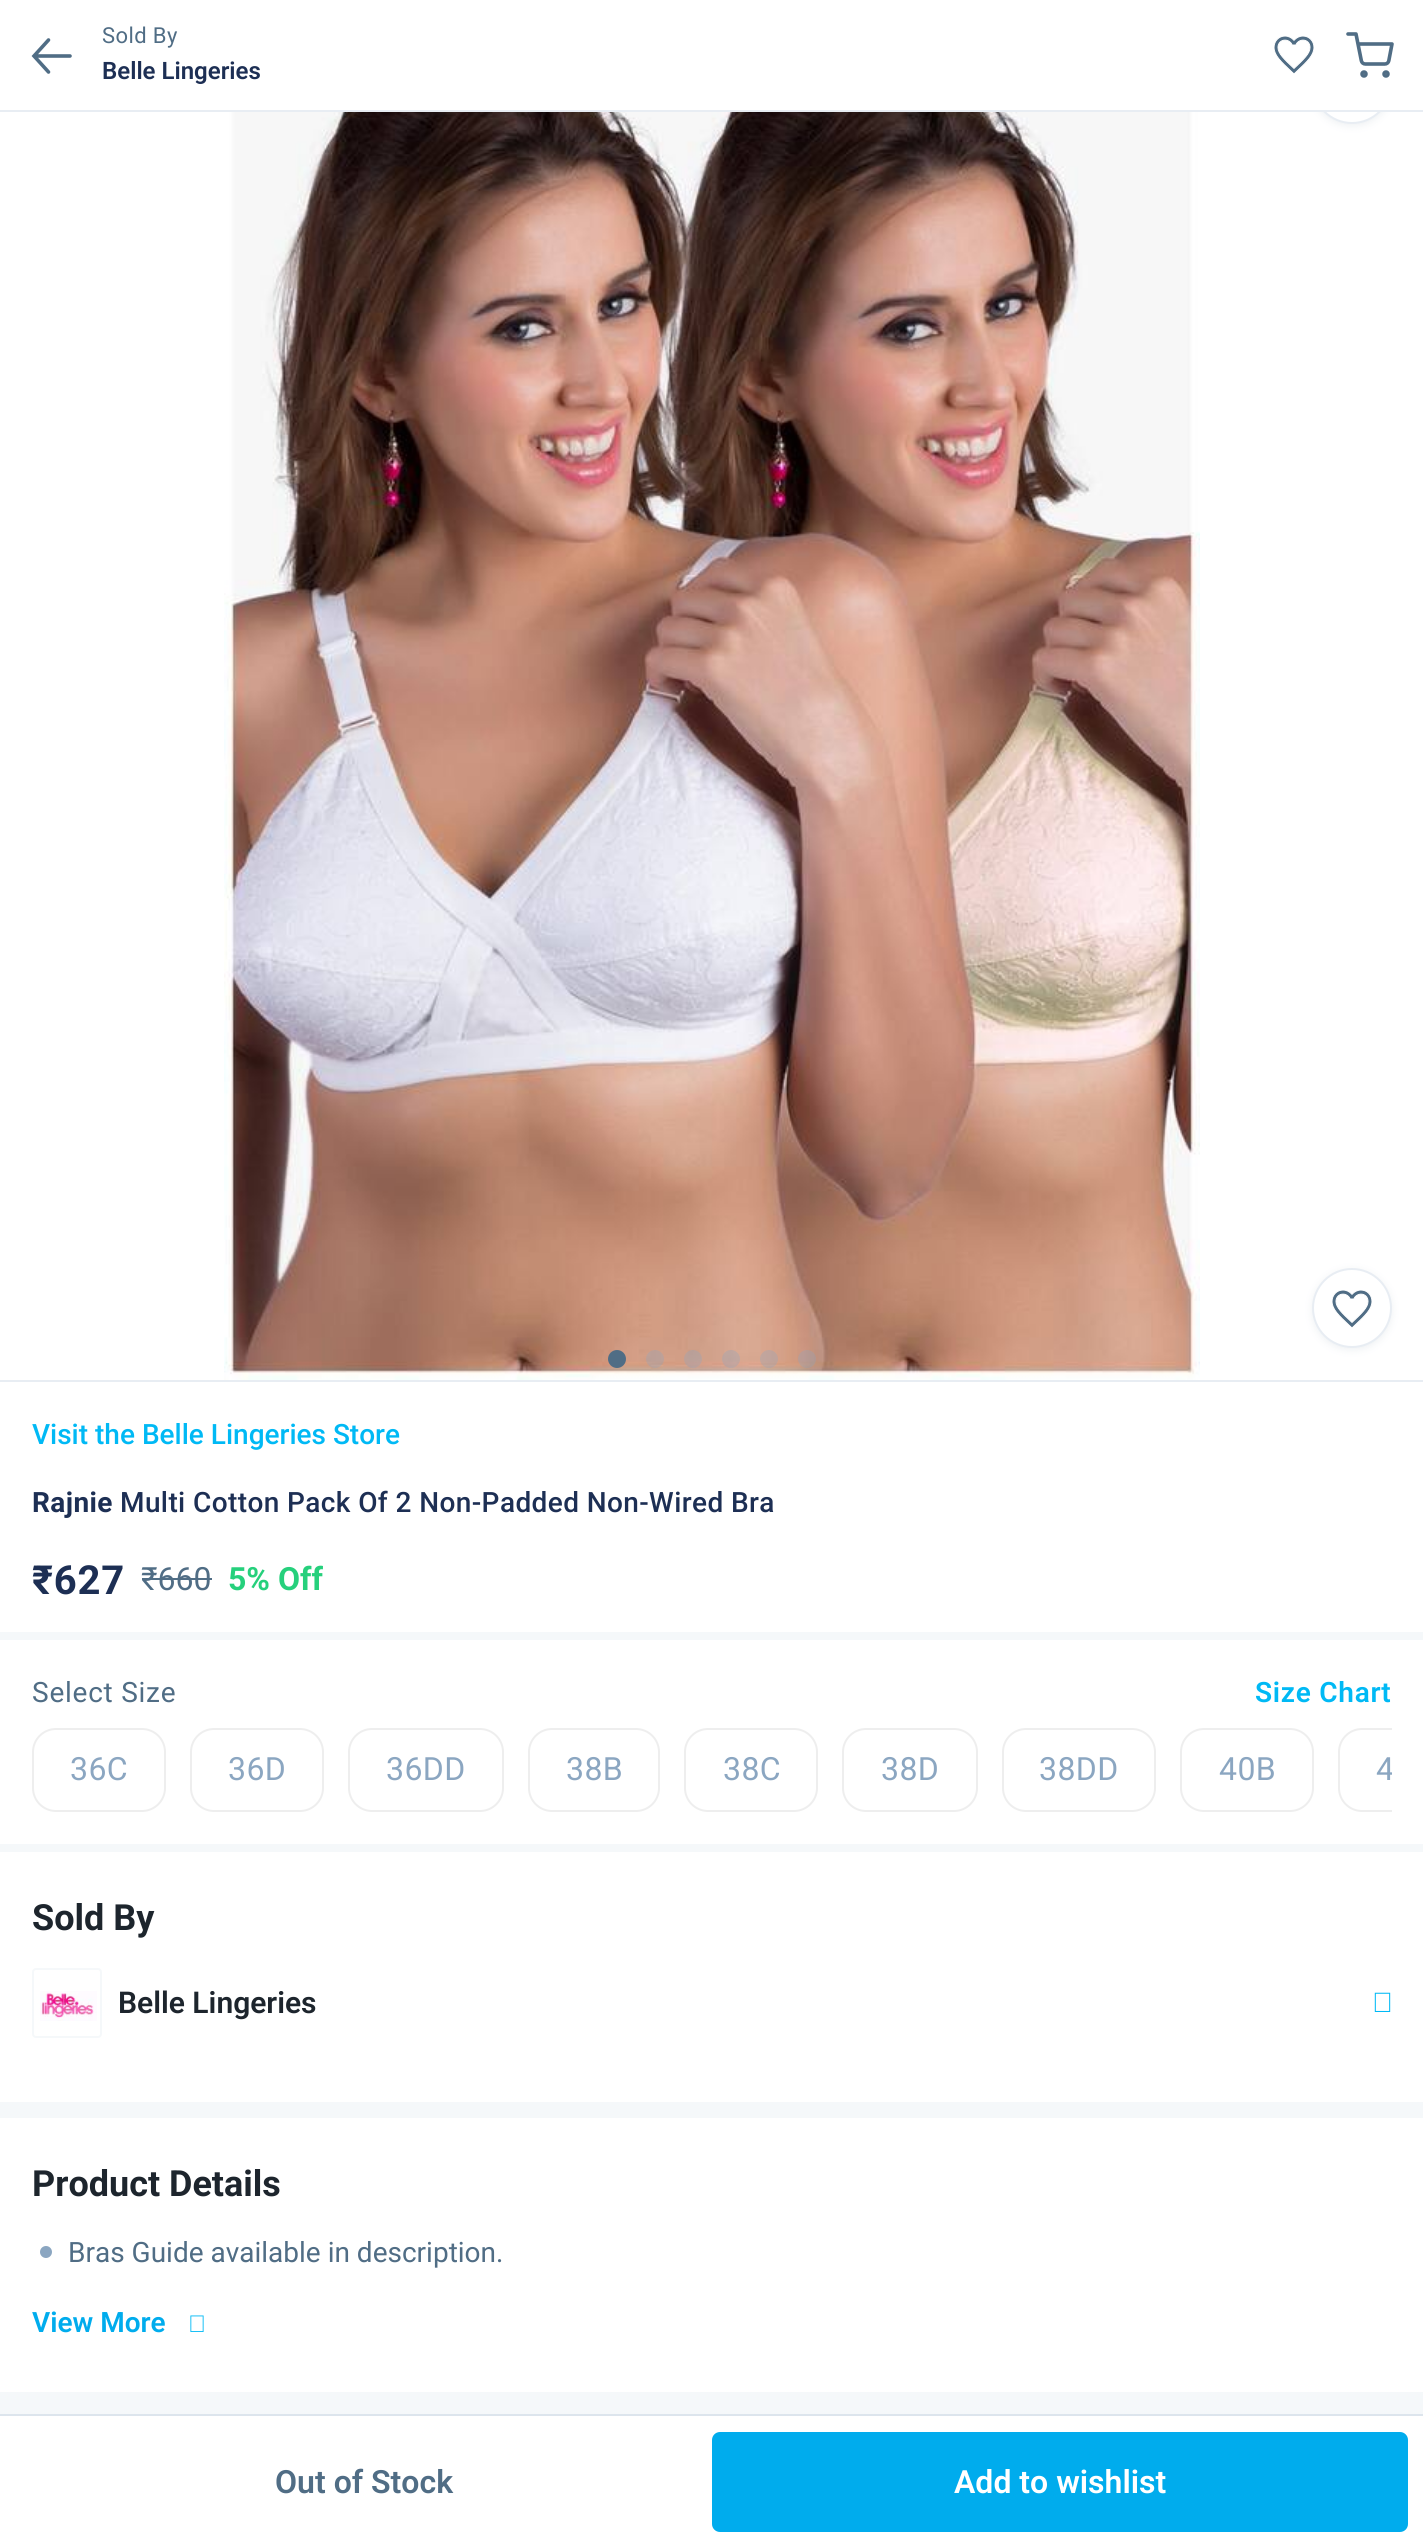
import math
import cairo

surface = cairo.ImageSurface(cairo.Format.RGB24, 1423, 2547)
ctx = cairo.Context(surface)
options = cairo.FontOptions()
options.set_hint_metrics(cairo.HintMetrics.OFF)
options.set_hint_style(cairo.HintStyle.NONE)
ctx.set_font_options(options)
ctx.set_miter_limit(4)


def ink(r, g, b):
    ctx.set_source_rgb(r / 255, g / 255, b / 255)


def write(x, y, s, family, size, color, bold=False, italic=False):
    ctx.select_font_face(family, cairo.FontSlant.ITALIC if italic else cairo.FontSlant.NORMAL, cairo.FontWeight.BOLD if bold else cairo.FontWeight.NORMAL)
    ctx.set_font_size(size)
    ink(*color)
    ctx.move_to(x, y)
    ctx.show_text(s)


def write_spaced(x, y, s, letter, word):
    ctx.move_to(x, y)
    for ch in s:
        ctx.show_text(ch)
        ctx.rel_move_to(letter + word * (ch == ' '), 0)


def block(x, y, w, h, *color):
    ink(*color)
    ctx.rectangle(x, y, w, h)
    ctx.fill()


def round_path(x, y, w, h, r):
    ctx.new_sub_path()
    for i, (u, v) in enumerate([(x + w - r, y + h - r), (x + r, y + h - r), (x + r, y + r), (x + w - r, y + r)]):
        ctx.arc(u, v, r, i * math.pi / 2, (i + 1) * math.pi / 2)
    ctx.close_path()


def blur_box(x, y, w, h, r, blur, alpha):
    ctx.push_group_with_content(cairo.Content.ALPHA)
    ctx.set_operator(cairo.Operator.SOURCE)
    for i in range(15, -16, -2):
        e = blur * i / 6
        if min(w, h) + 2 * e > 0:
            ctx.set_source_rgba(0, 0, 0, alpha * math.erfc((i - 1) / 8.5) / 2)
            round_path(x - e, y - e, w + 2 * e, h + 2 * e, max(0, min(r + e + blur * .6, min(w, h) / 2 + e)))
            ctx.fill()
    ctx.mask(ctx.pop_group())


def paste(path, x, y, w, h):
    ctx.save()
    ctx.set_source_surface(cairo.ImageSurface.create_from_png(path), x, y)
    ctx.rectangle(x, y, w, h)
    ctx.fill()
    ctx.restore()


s1 = dict(family="Roboto SemiBold", size=24, color=(29, 47, 84))
s2 = dict(family="Roboto Medium", size=28, color=(0, 185, 245))
s3 = dict(family="Roboto", size=32, color=(80, 109, 133))
s4 = dict(family="Roboto", size=32, color=(38, 208, 124), bold=True)
s5 = dict(family="Roboto", size=36, color=(29, 37, 45), bold=True)
s6 = dict(family="Roboto SemiBold", size=30, color=(29, 37, 45))
s7 = dict(family="Roboto", size=28, color=(80, 109, 133))
s8 = dict(family="Roboto SemiBold", size=28, color=(0, 172, 237))
s9 = dict(family="Roboto SemiBold", size=32, color=(80, 109, 133))
s10 = dict(family="Roboto SemiBold", size=32, color=(255, 255, 255))

ink(245, 248, 250)
ctx.paint()
block(0, 112, 1423, 1520, 255, 255, 255)
ink(80, 109, 133)
blur_box(1312, 46, 80, 80, 40, 4, 0.1)
ink(255, 255, 255)
ctx.arc(1352, 84, 39, 0, 2 * math.pi)
ctx.fill_preserve()
ink(232, 237, 243)
ctx.stroke()
block(0, 0, 1423, 110, 255, 255, 255)
block(0, 110, 1423, 2, 232, 237, 243)
ctx.new_path()
ctx.move_to(70, 56)
ctx.line_to(38, 56)
ctx.move_to(48.5, 40)
ctx.line_to(34, 56)
ctx.line_to(48.5, 72)
ink(80, 109, 133)
ctx.set_line_width(3.6)
ctx.set_line_cap(cairo.LineCap.ROUND)
ctx.stroke()
ctx.select_font_face("Roboto")
ctx.set_font_size(22)
write_spaced(102, 43, "Sold By", 0.4, 0)
write(102, 79, "Belle Lingeries", **s1)
paste("pic1.png", 1274, 36, 40, 38)
paste("pic2.png", 1346, 32, 48, 46)
paste("pic3.png", 224, 112, 976, 1268)
ink(80, 109, 133)
ctx.arc(617, 1359, 9, 0, 2 * math.pi)
ctx.fill()
ctx.set_source_rgba(0.545, 0.651, 0.757, 0.3)
ctx.arc(655, 1359, 9, 0, 2 * math.pi)
ctx.fill()
ctx.arc(693, 1359, 9, 0, 2 * math.pi)
ctx.fill()
ctx.arc(731, 1359, 9, 0, 2 * math.pi)
ctx.fill()
ctx.arc(769, 1359, 9, 0, 2 * math.pi)
ctx.fill()
ctx.arc(807, 1359, 9, 0, 2 * math.pi)
ctx.fill()
ink(80, 109, 133)
blur_box(1312, 1270, 80, 80, 40, 4, 0.1)
ink(255, 255, 255)
ctx.arc(1352, 1308, 39, 0, 2 * math.pi)
ctx.fill_preserve()
ink(232, 237, 243)
ctx.set_line_width(2)
ctx.set_line_cap(cairo.LineCap.BUTT)
ctx.stroke()
paste("pic1.png", 1332, 1290, 40, 38)
block(0, 1380, 1423, 2, 232, 237, 243)
write(32, 1444, "Visit the Belle Lingeries Store", **s2)
ctx.select_font_face("Roboto", cairo.FontSlant.NORMAL, cairo.FontWeight.BOLD)
ink(29, 47, 84)
write_spaced(32, 1512, "Rajnie", 0.4, 0)
ctx.select_font_face("Roboto Medium")
write_spaced(120, 1512, "Multi Cotton Pack Of 2 Non-Padded Non-Wired Bra", 0.4, 0)
ctx.select_font_face("Roboto", cairo.FontSlant.NORMAL, cairo.FontWeight.BOLD)
ctx.set_font_size(40)
write_spaced(32, 1594, "₹627", 0.75, 0)
write(141, 1590, "₹660", **s3)
block(142, 1578, 70, 2, 80, 109, 133)
write(228, 1590, "5% Off", **s4)
block(0, 1640, 1423, 204, 255, 255, 255)
ctx.select_font_face("Roboto")
ctx.set_font_size(28)
ink(80, 109, 133)
write_spaced(32, 1702, "Select Size", 0.75, 0)
ctx.select_font_face("Roboto SemiBold")
ink(0, 185, 245)
write_spaced(1255, 1702, "Size Chart", 0.75, 0)
round_path(33, 1729, 132, 82, 23)
ink(238, 238, 238)
ctx.stroke()
ctx.select_font_face("Roboto")
ctx.set_font_size(32)
ink(139, 166, 193)
write_spaced(70, 1780, "36C", 0.4, 0)
round_path(191, 1729, 132, 82, 23)
ink(238, 238, 238)
ctx.stroke()
ink(139, 166, 193)
write_spaced(228, 1780, "36D", 0.4, 0)
round_path(349, 1729, 154, 82, 23)
ink(238, 238, 238)
ctx.stroke()
ink(139, 166, 193)
write_spaced(386, 1780, "36DD", 0.4, 0)
round_path(529, 1729, 130, 82, 23)
ink(238, 238, 238)
ctx.stroke()
ink(139, 166, 193)
write_spaced(566, 1780, "38B", 0.4, 0)
round_path(685, 1729, 132, 82, 23)
ink(238, 238, 238)
ctx.stroke()
ink(139, 166, 193)
write_spaced(723, 1780, "38C", 0.4, 0)
round_path(843, 1729, 134, 82, 23)
ink(238, 238, 238)
ctx.stroke()
ink(139, 166, 193)
write_spaced(881, 1780, "38D", 0.4, 0)
round_path(1003, 1729, 152, 82, 23)
ink(238, 238, 238)
ctx.stroke()
ink(139, 166, 193)
write_spaced(1039, 1780, "38DD", 0.4, 0)
round_path(1181, 1729, 132, 82, 23)
ink(238, 238, 238)
ctx.stroke()
ink(139, 166, 193)
write_spaced(1219, 1780, "40B", 0.4, 0)
ctx.save()
ctx.rectangle(32, 1728, 1360, 84)
ctx.clip()
round_path(1339, 1729, 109, 82, 23)
ink(238, 238, 238)
ctx.stroke()
ctx.restore()
ctx.save()
ctx.rectangle(1376, 1746, 16, 48)
ctx.clip()
write_spaced(1376, 1780, "4", 0.4, 0)
ctx.restore()
block(0, 1852, 1423, 250, 255, 255, 255)
write(32, 1930, "Sold By", **s5)
round_path(33, 1969, 68, 68, 3)
ink(245, 248, 250)
ctx.stroke()
paste("pic4.png", 40, 1991, 57, 30)
write(118, 2013, "Belle Lingeries", **s6)
paste("pic5.png", 1374, 1992, 17, 20)
block(0, 2118, 1423, 274, 255, 255, 255)
write(32, 2196, "Product Details", **s5)
ink(139, 166, 193)
ctx.new_path()
ctx.arc(46, 2252, 6, 0, 2 * math.pi)
ctx.fill()
write(68, 2262, "Bras Guide available in description.", **s7)
write(32, 2332, "View More", **s8)
paste("pic6.png", 190, 2315, 14, 17)
block(0, 2416, 1423, 131, 255, 255, 255)
block(0, 2414, 1423, 2, 221, 229, 237)
write(275, 2493, "Out of Stock", **s9)
ink(0, 172, 237)
round_path(712, 2432, 696, 100, 8)
ctx.fill()
write(954, 2493, "Add to wishlist", **s10)
surface.write_to_png("screenshot.png")
